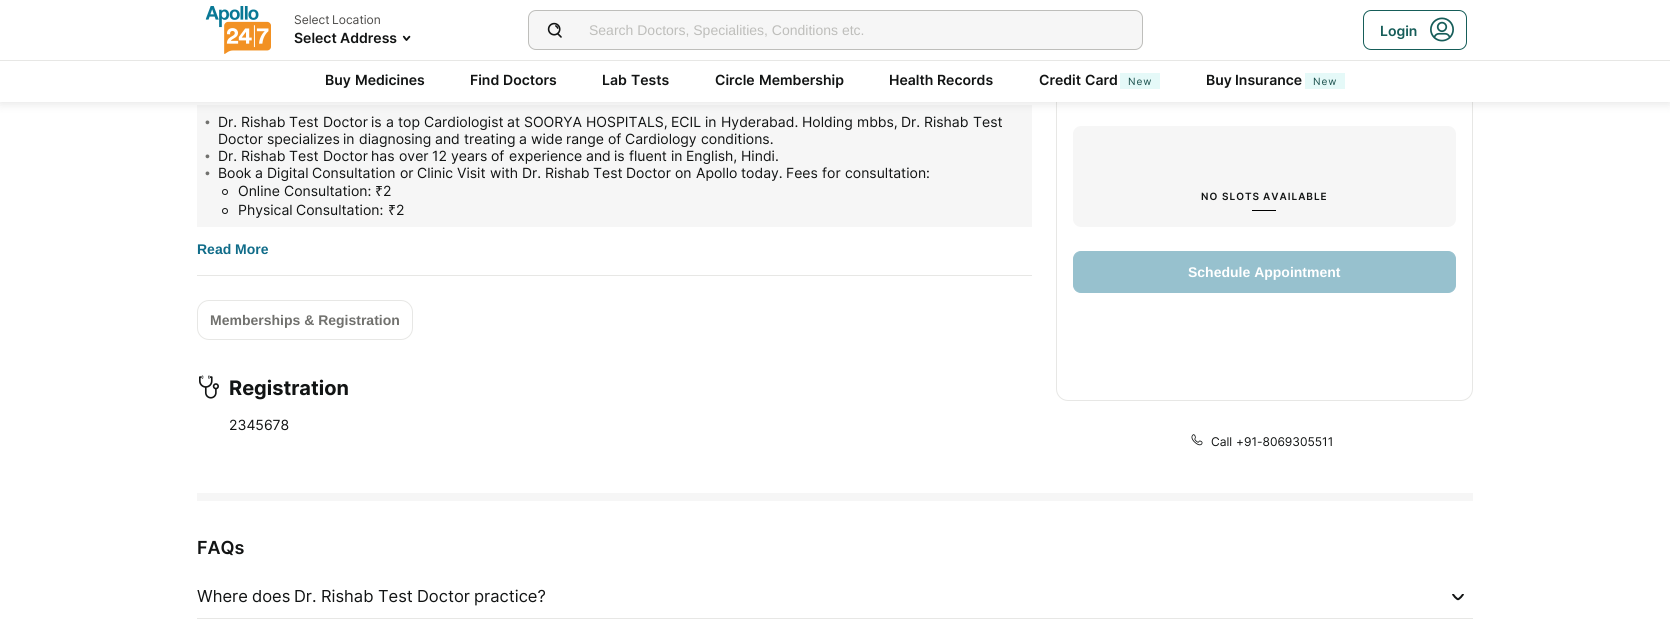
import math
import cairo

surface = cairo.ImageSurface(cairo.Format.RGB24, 1670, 637)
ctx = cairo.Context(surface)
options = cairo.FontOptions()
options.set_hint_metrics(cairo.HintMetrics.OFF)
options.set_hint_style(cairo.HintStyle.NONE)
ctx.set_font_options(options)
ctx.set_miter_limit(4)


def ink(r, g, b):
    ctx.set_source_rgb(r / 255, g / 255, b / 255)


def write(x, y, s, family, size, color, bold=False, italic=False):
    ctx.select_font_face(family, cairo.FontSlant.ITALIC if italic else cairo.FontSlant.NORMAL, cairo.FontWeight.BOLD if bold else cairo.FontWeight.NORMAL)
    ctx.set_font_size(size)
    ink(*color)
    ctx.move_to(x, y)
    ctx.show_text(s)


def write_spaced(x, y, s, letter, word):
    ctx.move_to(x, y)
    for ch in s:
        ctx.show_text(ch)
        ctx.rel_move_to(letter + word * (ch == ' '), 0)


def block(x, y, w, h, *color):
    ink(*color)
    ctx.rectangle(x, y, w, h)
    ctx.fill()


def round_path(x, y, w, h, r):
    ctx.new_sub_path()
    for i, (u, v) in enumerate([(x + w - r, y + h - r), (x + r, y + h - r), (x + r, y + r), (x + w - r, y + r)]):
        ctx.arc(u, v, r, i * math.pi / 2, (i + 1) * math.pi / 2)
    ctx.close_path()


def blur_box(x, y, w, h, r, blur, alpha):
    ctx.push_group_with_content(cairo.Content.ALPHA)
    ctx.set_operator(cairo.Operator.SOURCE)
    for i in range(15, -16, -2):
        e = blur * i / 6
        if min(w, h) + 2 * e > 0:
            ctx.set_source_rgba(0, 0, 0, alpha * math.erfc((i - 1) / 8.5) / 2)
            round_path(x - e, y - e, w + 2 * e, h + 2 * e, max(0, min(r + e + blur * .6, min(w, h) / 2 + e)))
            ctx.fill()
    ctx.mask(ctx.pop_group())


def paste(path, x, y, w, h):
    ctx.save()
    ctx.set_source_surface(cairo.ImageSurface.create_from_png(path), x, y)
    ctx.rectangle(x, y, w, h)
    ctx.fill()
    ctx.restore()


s1 = dict(family="Inter", size=12, color=(75, 74, 72))
s2 = dict(family="Inter SemiBold", size=14, color=(18, 20, 20))
s3 = dict(family="Liberation Sans", size=14, color=(190, 190, 187))
s4 = dict(family="Inter SemiBold", size=14, color=(22, 93, 89))
s5 = dict(family="Liberation Sans", size=14, color=(113, 113, 110))
s6 = dict(family="Inter", size=14, color=(18, 20, 20))
s7 = dict(family="Noto Sans", size=14, color=(18, 20, 20))
s8 = dict(family="Liberation Sans", size=14, color=(16, 108, 137), bold=True)
s9 = dict(family="Liberation Sans", size=14, color=(255, 255, 255), bold=True)
s10 = dict(family="Inter", size=12, color=(18, 20, 20))
s11 = dict(family="Liberation Sans", size=14, color=(113, 113, 110), bold=True)
s12 = dict(family="Inter", size=20, color=(18, 20, 20), bold=True)
s13 = dict(family="Inter SemiBold", size=18, color=(18, 20, 20))
s14 = dict(family="Inter", size=16.5, color=(18, 20, 20))

ink(255, 255, 255)
ctx.paint()
block(197, 105, 835, 122, 246, 246, 246)
round_path(1056.5, -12.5, 416, 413, 11.5)
ink(231, 231, 229)
ctx.set_line_width(1)
ctx.stroke()
ink(0, 0, 0)
blur_box(0, 2, 1670, 102, 0, 5, 0.1)
block(0, 0, 1670, 102, 255, 255, 255)
paste("pic1.png", 205, 6, 66, 48)
write(294, 24, "Select", **s1)
write(332, 24, "Location", **s1)
write(294, 43, "Select", **s2)
write(340, 43, "Address", **s2)
ctx.new_path()
ctx.move_to(410, 36)
ctx.curve_to(411, 37, 409.5, 38, 409, 38.5)
ctx.curve_to(408.5, 39, 407, 41.5, 406, 40.5)
ctx.curve_to(405, 40, 406.5, 38.5, 407, 38)
ctx.curve_to(407.5, 37.5, 409, 35, 410, 36)
ctx.close_path()
ctx.fill()
ctx.new_path()
ctx.move_to(407, 40.5)
ctx.curve_to(406, 41.5, 404.5, 39, 404, 38.5)
ctx.curve_to(404, 38, 402.5, 37, 403, 36)
ctx.curve_to(404.5, 35, 405.5, 37.5, 406, 38)
ctx.curve_to(406.5, 38.5, 408, 40, 407, 40.5)
ctx.close_path()
ctx.fill()
ink(246, 246, 246)
round_path(528.5, 10.5, 614, 39, 7.5)
ctx.fill_preserve()
ink(190, 190, 187)
ctx.stroke()
paste("pic2.png", 547, 22, 15, 16)
write(589, 35, "Search Doctors, Specialities, Conditions etc.", **s3)
round_path(1363.5, 10.5, 103, 39, 7.5)
ink(22, 93, 89)
ctx.stroke()
write(1380, 36, "Login", **s4)
paste("pic3.png", 1430, 17, 24, 25)
block(0, 60, 1670, 1, 231, 231, 229)
write(325, 85, "Buy", **s2)
write(355, 85, "Medicines", **s2)
write(470, 85, "Find", **s2)
write(503, 85, "Doctors", **s2)
write(602, 85, "Lab", **s2)
write(631, 85, "Tests", **s2)
write(715, 85, "Circle", **s2)
write(759, 85, "Membership", **s2)
write(889, 85, "Health", **s2)
write(937, 85, "Records", **s2)
write(1039, 85, "Credit", **s2)
write(1085, 85, "Card", **s2)
block(1120, 73, 40, 16, 229, 249, 248)
ctx.select_font_face("Inter")
ctx.set_font_size(10)
ink(26, 80, 76)
write_spaced(1128, 85, "New", 1, 0)
write(1206, 85, "Buy", **s2)
write(1235, 85, "Insurance", **s2)
block(1305, 73, 40, 16, 229, 249, 248)
ctx.select_font_face("Inter")
ctx.set_font_size(10)
ink(26, 80, 76)
write_spaced(1313, 85, "New", 1, 0)
block(197, 275, 835, 1, 231, 231, 229)
write(205, 127, "•", **s5)
write(218, 127, "Dr.", **s6)
write(241, 127, "Rishab", **s6)
write(289, 127, "Test", **s6)
write(323, 127, "Doctor", **s6)
write(371, 127, "is", **s6)
write(386, 127, "a", **s6)
write(398, 127, "top", **s6)
write(424, 127, "Cardiologist", **s6)
write(507, 127, "at", **s6)
write(524, 127, "SOORYA", **s6)
write(586, 127, "HOSPITALS,", **s6)
write(671, 127, "ECIL", **s6)
write(705, 127, "in", **s6)
write(721, 127, "Hyderabad.", **s6)
write(802, 127, "Holding", **s6)
write(857, 127, "mbbs,", **s6)
write(901, 127, "Dr.", **s6)
write(924, 127, "Rishab", **s6)
write(973, 127, "Test", **s6)
write(218, 144, "Doctor", **s6)
write(267, 144, "specializes", **s6)
write(343, 144, "in", **s6)
write(359, 144, "diagnosing", **s6)
write(435, 144, "and", **s6)
write(464, 144, "treating", **s6)
write(519, 144, "a", **s6)
write(531, 144, "wide", **s6)
write(566, 144, "range", **s6)
write(608, 144, "of", **s6)
write(625, 144, "Cardiology", **s6)
write(701, 144, "conditions.", **s6)
write(205, 161, "•", **s5)
write(218, 161, "Dr.", **s6)
write(241, 161, "Rishab", **s6)
write(289, 161, "Test", **s6)
write(323, 161, "Doctor", **s6)
write(371, 161, "has", **s6)
write(399, 161, "over", **s6)
write(432, 161, "12", **s6)
write(451, 161, "years", **s6)
write(491, 161, "of", **s6)
write(509, 161, "experience", **s6)
write(586, 161, "and", **s6)
write(614, 161, "is", **s6)
write(629, 161, "fluent", **s6)
write(671, 161, "in", **s6)
write(686, 161, "English,", **s6)
write(741, 161, "Hindi.", **s6)
write(205, 178, "•", **s5)
write(218, 178, "Book", **s6)
write(255, 178, "a", **s6)
write(267, 178, "Digital", **s6)
write(312, 178, "Consultation", **s6)
write(400, 178, "or", **s6)
write(417, 178, "Clinic", **s6)
write(457, 178, "Visit", **s6)
write(490, 178, "with", **s6)
write(522, 178, "Dr.", **s6)
write(545, 178, "Rishab", **s6)
write(593, 178, "Test", **s6)
write(626, 178, "Doctor", **s6)
write(675, 178, "on", **s6)
write(696, 178, "Apollo", **s6)
write(741, 178, "today.", **s6)
write(786, 178, "Fees", **s6)
write(822, 178, "for", **s6)
write(845, 178, "consultation:", **s6)
ctx.new_path()
ctx.arc(225, 192, 2.5, 0, 2 * math.pi)
ctx.stroke()
write(238, 196, "Online", **s6)
write(284, 196, "Consultation:", **s6)
write(375, 196, "₹", **s7)
write(383, 196, "2", **s6)
ctx.new_path()
ctx.arc(225, 211, 2.5, 0, 2 * math.pi)
ctx.stroke()
write(238, 215, "Physical", **s6)
write(296, 215, "Consultation:", **s6)
write(388, 215, "₹", **s7)
write(396, 215, "2", **s6)
write(197, 254, "Read More", **s8)
ink(246, 246, 246)
round_path(1073, 126, 383, 101, 8)
ctx.fill()
ctx.select_font_face("Inter SemiBold")
ctx.set_font_size(10)
ink(18, 20, 20)
write_spaced(1201, 200, "NO", 1, 0)
write_spaced(1222, 200, "SLOTS", 1, 0)
write_spaced(1263, 200, "AVAILABLE", 1, 0)
block(1252, 210, 24, 1, 0, 0, 0)
ink(151, 193, 206)
round_path(1073.5, 251.5, 382, 41, 7.5)
ctx.fill_preserve()
ctx.stroke()
write(1188, 277, "Schedule Appointment", **s9)
paste("pic4.png", 1191, 434, 12, 12)
write(1211, 446, "Call", **s10)
write(1236, 446, "+91-8069305511", **s10)
round_path(197.5, 300.5, 215, 39, 11.5)
ink(231, 231, 229)
ctx.stroke()
write(210, 325, "Memberships & Registration", **s11)
paste("pic5.png", 199, 375, 20, 24)
write(229, 395, "Registration", **s12)
write(229, 430, "2345678", **s6)
block(197, 493, 1276, 8, 246, 246, 246)
write(197, 554, "FAQs", **s13)
block(197, 618, 1276, 1, 231, 231, 229)
write(197, 602, "Where", **s14)
write(252, 602, "does", **s14)
write(294, 602, "Dr.", **s14)
write(321, 602, "Rishab", **s14)
write(378, 602, "Test", **s14)
write(417, 602, "Doctor", **s14)
write(474, 602, "practice?", **s14)
ctx.new_path()
ctx.move_to(1463, 594)
ctx.curve_to(1463, 595, 1461.5, 596, 1461, 597)
ctx.curve_to(1457.5, 600, 1458.5, 600, 1455, 597)
ctx.curve_to(1454.5, 596, 1453, 595, 1453, 594)
ctx.set_line_width(2)
ctx.stroke()
surface.write_to_png("screenshot.png")
